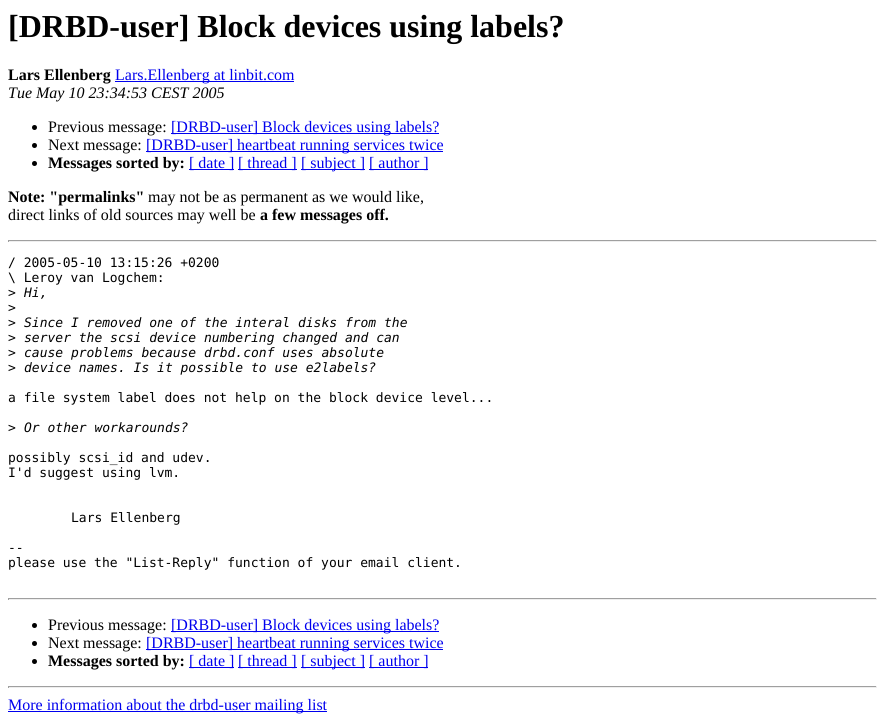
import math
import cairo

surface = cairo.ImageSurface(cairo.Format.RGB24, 885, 719)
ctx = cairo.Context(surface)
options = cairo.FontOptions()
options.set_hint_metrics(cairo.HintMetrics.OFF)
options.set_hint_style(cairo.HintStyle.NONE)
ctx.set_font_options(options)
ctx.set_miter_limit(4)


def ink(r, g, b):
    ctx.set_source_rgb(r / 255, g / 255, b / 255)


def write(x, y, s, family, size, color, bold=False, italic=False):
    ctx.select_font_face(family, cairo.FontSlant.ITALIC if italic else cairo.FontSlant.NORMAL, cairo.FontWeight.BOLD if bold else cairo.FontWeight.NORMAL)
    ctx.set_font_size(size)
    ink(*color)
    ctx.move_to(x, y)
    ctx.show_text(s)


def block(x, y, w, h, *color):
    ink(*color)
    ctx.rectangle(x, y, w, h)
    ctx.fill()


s1 = dict(family="Liberation Serif", size=32, color=(0, 0, 0), bold=True)
s2 = dict(family="Liberation Serif", size=16, color=(0, 0, 0), bold=True)
s3 = dict(family="Liberation Serif", size=16, color=(0, 0, 238))
s4 = dict(family="Liberation Serif", size=16, color=(0, 0, 0), italic=True)
s5 = dict(family="Liberation Serif", size=16, color=(0, 0, 0))
s6 = dict(family="DejaVu Sans Mono", size=13, color=(0, 0, 0))
s7 = dict(family="DejaVu Sans Mono", size=13, color=(0, 0, 0), italic=True)

ink(255, 255, 255)
ctx.paint()
write(8, 37, "[DRBD-user] Block devices using labels?", **s1)
write(8, 80, "Lars Ellenberg", **s2)
block(115, 81, 179, 1, 0, 0, 238)
write(115, 80, "Lars.Ellenberg at linbit.com", **s3)
write(8, 98, "Tue May 10 23:34:53 CEST 2005", **s4)
ctx.new_path()
ctx.arc(34.5, 127.5, 2.5, 0, 2 * math.pi)
ctx.fill()
write(48, 132, "Previous message:", **s5)
block(171, 133, 268, 1, 0, 0, 238)
write(171, 132, "[DRBD-user] Block devices using labels?", **s3)
ink(0, 0, 0)
ctx.new_path()
ctx.arc(34.5, 145.5, 2.5, 0, 2 * math.pi)
ctx.fill()
write(48, 150, "Next message:", **s5)
block(146, 151, 297, 1, 0, 0, 238)
write(146, 150, "[DRBD-user] heartbeat running services twice", **s3)
ink(0, 0, 0)
ctx.new_path()
ctx.arc(34.5, 163.5, 2.5, 0, 2 * math.pi)
ctx.fill()
write(48, 168, "Messages sorted by:", **s2)
block(189, 169, 45, 1, 0, 0, 238)
write(189, 168, "[ date ]", **s3)
block(238, 169, 59, 1, 0, 0, 238)
write(238, 168, "[ thread ]", **s3)
block(301, 169, 64, 1, 0, 0, 238)
write(301, 168, "[ subject ]", **s3)
block(369, 169, 59, 1, 0, 0, 238)
write(369, 168, "[ author ]", **s3)
write(8, 202, "Note: \"permalinks\"", **s2)
write(148, 202, "may not be as permanent as we would like,", **s5)
write(8, 220, "direct links of old sources may well be", **s5)
write(260, 220, "a few messages off.", **s2)
block(8, 240, 869, 1, 159, 159, 159)
block(876, 240, 1, 2, 238, 238, 238)
block(8, 241, 869, 1, 238, 238, 238)
block(8, 240, 1, 2, 159, 159, 159)
write(8, 267, "/ 2005-05-10 13:15:26 +0200", **s6)
write(8, 282, "\\ Leroy van Logchem:", **s6)
write(8, 297, ">", **s6)
write(24, 297, "Hi,", **s7)
write(8, 312, ">", **s6)
write(8, 327, ">", **s6)
write(24, 327, "Since I removed one of the interal disks from the", **s7)
write(8, 342, ">", **s6)
write(24, 342, "server the scsi device numbering changed and can", **s7)
write(8, 357, ">", **s6)
write(24, 357, "cause problems because drbd.conf uses absolute", **s7)
write(8, 372, ">", **s6)
write(24, 372, "device names. Is it possible to use e2labels?", **s7)
write(8, 402, "a file system label does not help on the block device level...", **s6)
write(8, 432, ">", **s6)
write(24, 432, "Or other workarounds?", **s7)
write(8, 462, "possibly scsi_id and udev.", **s6)
write(8, 477, "I'd suggest using lvm.", **s6)
write(71, 522, "Lars Ellenberg", **s6)
write(8, 552, "--", **s6)
write(8, 567, "please use the \"List-Reply\" function of your email client.", **s6)
block(8, 598, 869, 1, 159, 159, 159)
block(876, 598, 1, 2, 238, 238, 238)
block(8, 599, 869, 1, 238, 238, 238)
block(8, 598, 1, 2, 159, 159, 159)
ink(0, 0, 0)
ctx.new_path()
ctx.arc(34.5, 625.5, 2.5, 0, 2 * math.pi)
ctx.fill()
write(48, 630, "Previous message:", **s5)
block(171, 631, 268, 1, 0, 0, 238)
write(171, 630, "[DRBD-user] Block devices using labels?", **s3)
ink(0, 0, 0)
ctx.new_path()
ctx.arc(34.5, 643.5, 2.5, 0, 2 * math.pi)
ctx.fill()
write(48, 648, "Next message:", **s5)
block(146, 649, 297, 1, 0, 0, 238)
write(146, 648, "[DRBD-user] heartbeat running services twice", **s3)
ink(0, 0, 0)
ctx.new_path()
ctx.arc(34.5, 661.5, 2.5, 0, 2 * math.pi)
ctx.fill()
write(48, 666, "Messages sorted by:", **s2)
block(189, 667, 45, 1, 0, 0, 238)
write(189, 666, "[ date ]", **s3)
block(238, 667, 59, 1, 0, 0, 238)
write(238, 666, "[ thread ]", **s3)
block(301, 667, 64, 1, 0, 0, 238)
write(301, 666, "[ subject ]", **s3)
block(369, 667, 59, 1, 0, 0, 238)
write(369, 666, "[ author ]", **s3)
block(8, 686, 869, 1, 159, 159, 159)
block(876, 686, 1, 2, 238, 238, 238)
block(8, 687, 869, 1, 238, 238, 238)
block(8, 686, 1, 2, 159, 159, 159)
block(8, 711, 319, 1, 0, 0, 238)
write(8, 710, "More information about the drbd-user mailing list", **s3)
surface.write_to_png("screenshot.png")
